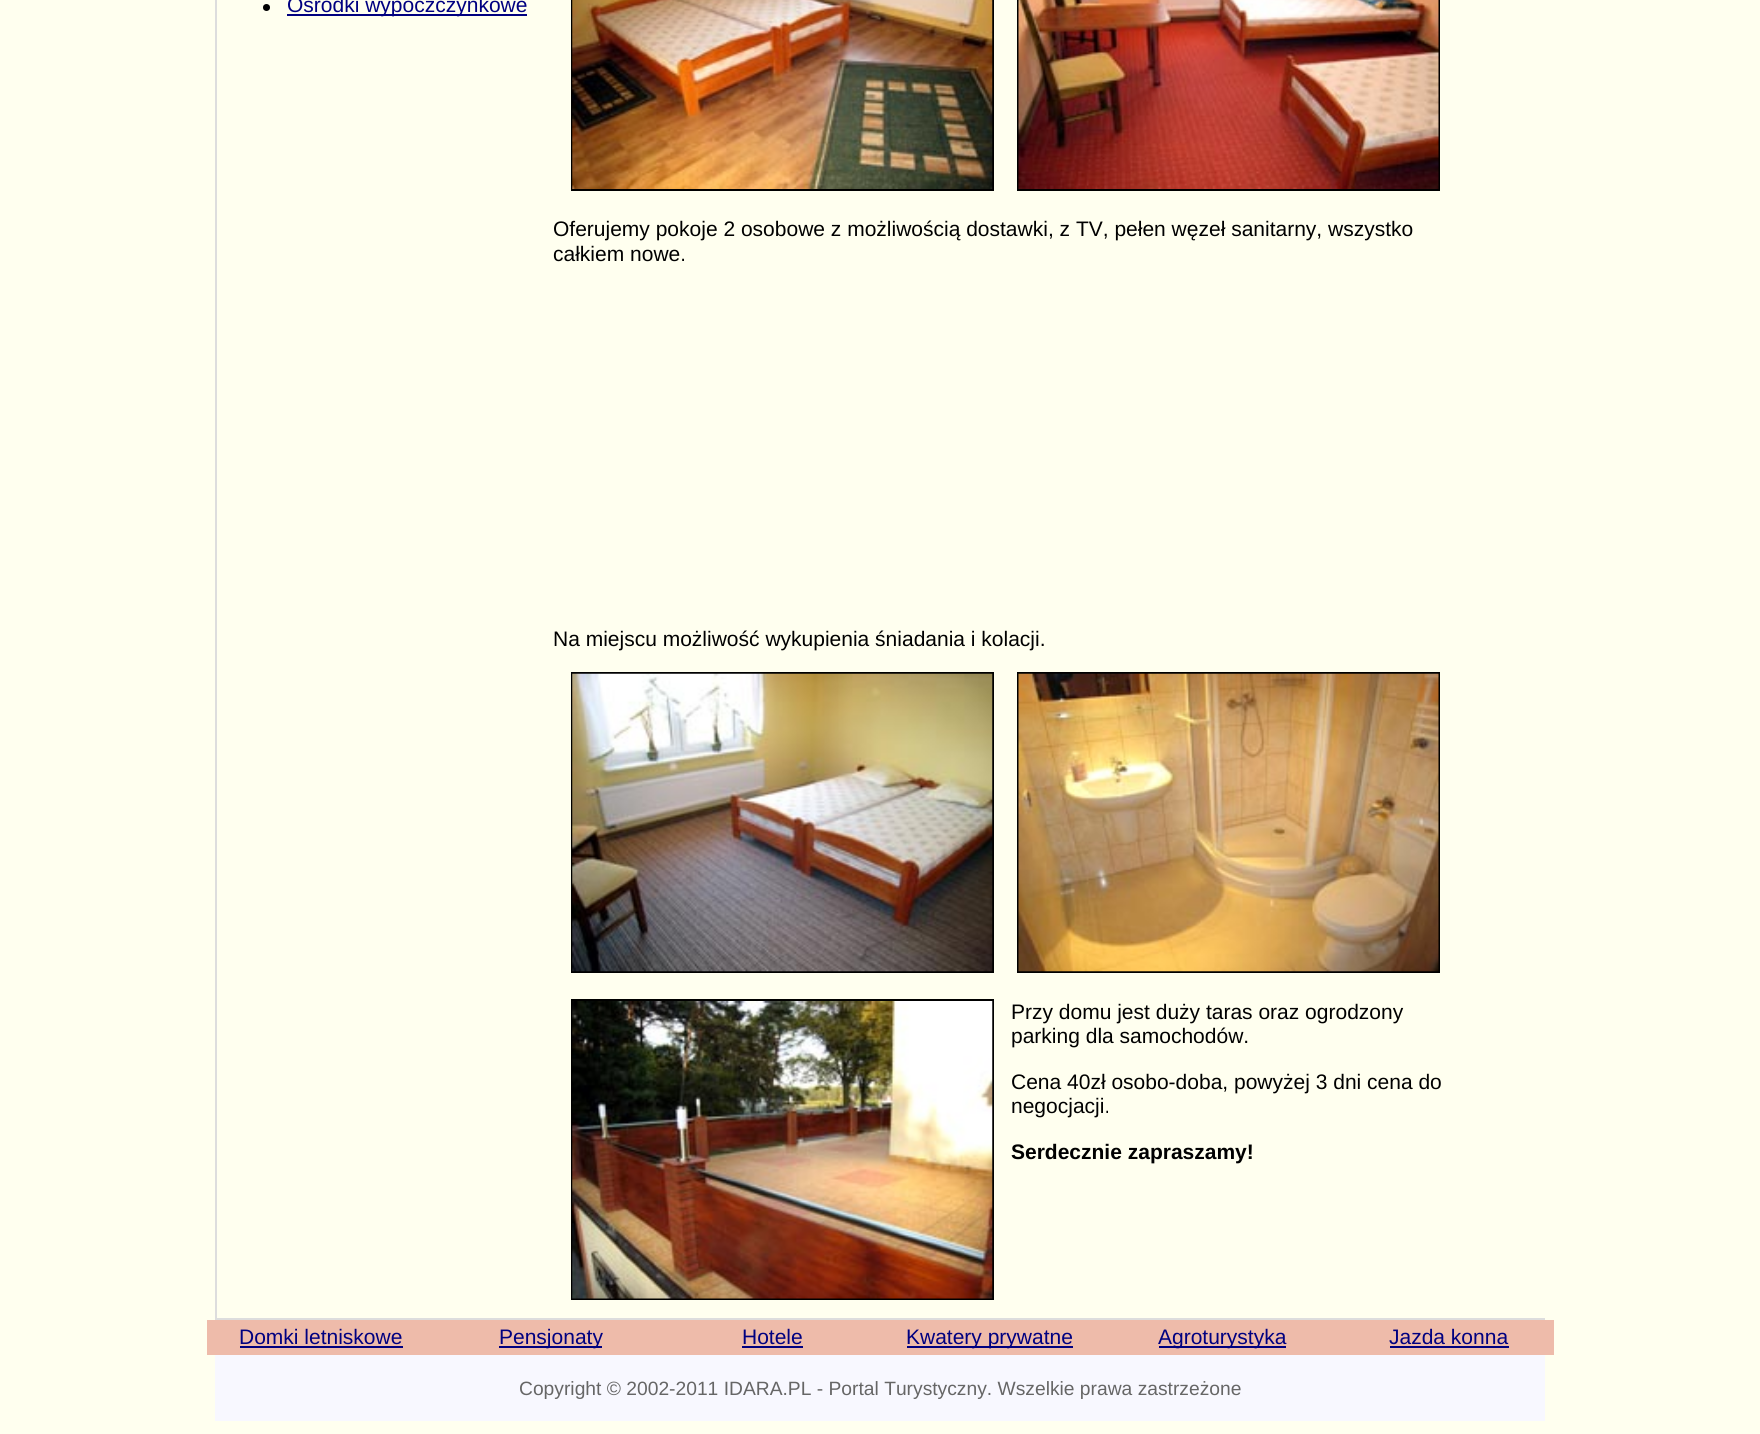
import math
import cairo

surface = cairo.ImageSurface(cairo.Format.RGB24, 1760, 1434)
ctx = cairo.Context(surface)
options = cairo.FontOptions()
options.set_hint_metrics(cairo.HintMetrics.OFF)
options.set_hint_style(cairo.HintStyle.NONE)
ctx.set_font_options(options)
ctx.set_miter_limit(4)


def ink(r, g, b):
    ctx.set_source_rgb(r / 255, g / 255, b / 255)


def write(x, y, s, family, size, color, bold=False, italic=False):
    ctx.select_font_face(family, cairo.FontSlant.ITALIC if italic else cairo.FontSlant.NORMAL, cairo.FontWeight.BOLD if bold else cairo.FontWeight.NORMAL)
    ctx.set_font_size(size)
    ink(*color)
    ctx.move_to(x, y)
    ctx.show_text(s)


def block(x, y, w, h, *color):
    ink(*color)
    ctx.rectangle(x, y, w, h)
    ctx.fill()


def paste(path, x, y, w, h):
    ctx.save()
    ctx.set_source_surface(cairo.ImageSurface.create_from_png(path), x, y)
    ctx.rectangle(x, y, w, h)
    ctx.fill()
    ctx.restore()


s1 = dict(family="Liberation Sans", size=21, color=(0, 0, 128))
s2 = dict(family="Liberation Sans", size=21, color=(0, 0, 0))
s3 = dict(family="Liberation Sans", size=21, color=(0, 0, 0), bold=True)
s4 = dict(family="Liberation Sans", size=19.25, color=(102, 102, 102))

ink(255, 255, 239)
ctx.paint()
block(215, 1318, 1330, 2, 221, 221, 221)
block(215, 0, 2, 1320, 221, 221, 221)
ink(0, 0, 0)
ctx.arc(266.5, 7.5, 3.5, 0, 2 * math.pi)
ctx.fill()
block(287, 14, 240, 2, 0, 0, 128)
write(287, 12, "Ośrodki wypoczczynkowe", **s1)
ctx.rectangle(572, -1, 421, 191)
ink(0, 0, 0)
ctx.stroke()
ctx.rectangle(1018, -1, 421, 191)
ctx.stroke()
paste("pic1.png", 572, 0, 421, 189)
paste("pic2.png", 1018, 0, 421, 189)
write(553, 236, "Oferujemy pokoje 2 osobowe z możliwością dostawki, z TV, pełen węzeł sanitarny, wszystko", **s2)
write(553, 261, "całkiem nowe.", **s2)
write(553, 646, "Na miejscu możliwość wykupienia śniadania i kolacji.", **s2)
ctx.rectangle(572, 673, 421, 299)
ctx.stroke()
ctx.rectangle(1018, 673, 421, 299)
ctx.stroke()
paste("pic3.png", 572, 673, 421, 299)
paste("pic4.png", 1018, 673, 421, 299)
ctx.rectangle(572, 1000, 421, 299)
ctx.stroke()
paste("pic5.png", 572, 1001, 421, 298)
write(1011, 1019, "Przy domu jest duży taras oraz ogrodzony", **s2)
write(1011, 1043, "parking dla samochodów.", **s2)
write(1011, 1089, "Cena 40zł osobo-doba, powyżej 3 dni cena do", **s2)
write(1011, 1113, "negocjacji.", **s2)
write(1011, 1159, "Serdecznie zapraszamy!", **s3)
block(207, 1320, 1347, 35, 238, 187, 170)
write(239, 1344, "Domki letniskowe", **s1)
block(240, 1346, 163, 2, 0, 0, 128)
block(499, 1346, 103, 2, 0, 0, 128)
write(499, 1344, "Pensjonaty", **s1)
write(742, 1344, "Hotele", **s1)
block(742, 1346, 61, 2, 0, 0, 128)
block(907, 1346, 166, 2, 0, 0, 128)
write(906, 1344, "Kwatery prywatne", **s1)
block(1159, 1346, 127, 2, 0, 0, 128)
write(1158, 1344, "Agroturystyka", **s1)
write(1389, 1344, "Jazda konna", **s1)
block(1390, 1346, 119, 2, 0, 0, 128)
block(215, 1355, 1330, 66, 248, 248, 255)
write(519, 1395, "Copyright © 2002-2011 IDARA.PL - Portal Turystyczny. Wszelkie prawa zastrzeżone", **s4)
surface.write_to_png("screenshot.png")
